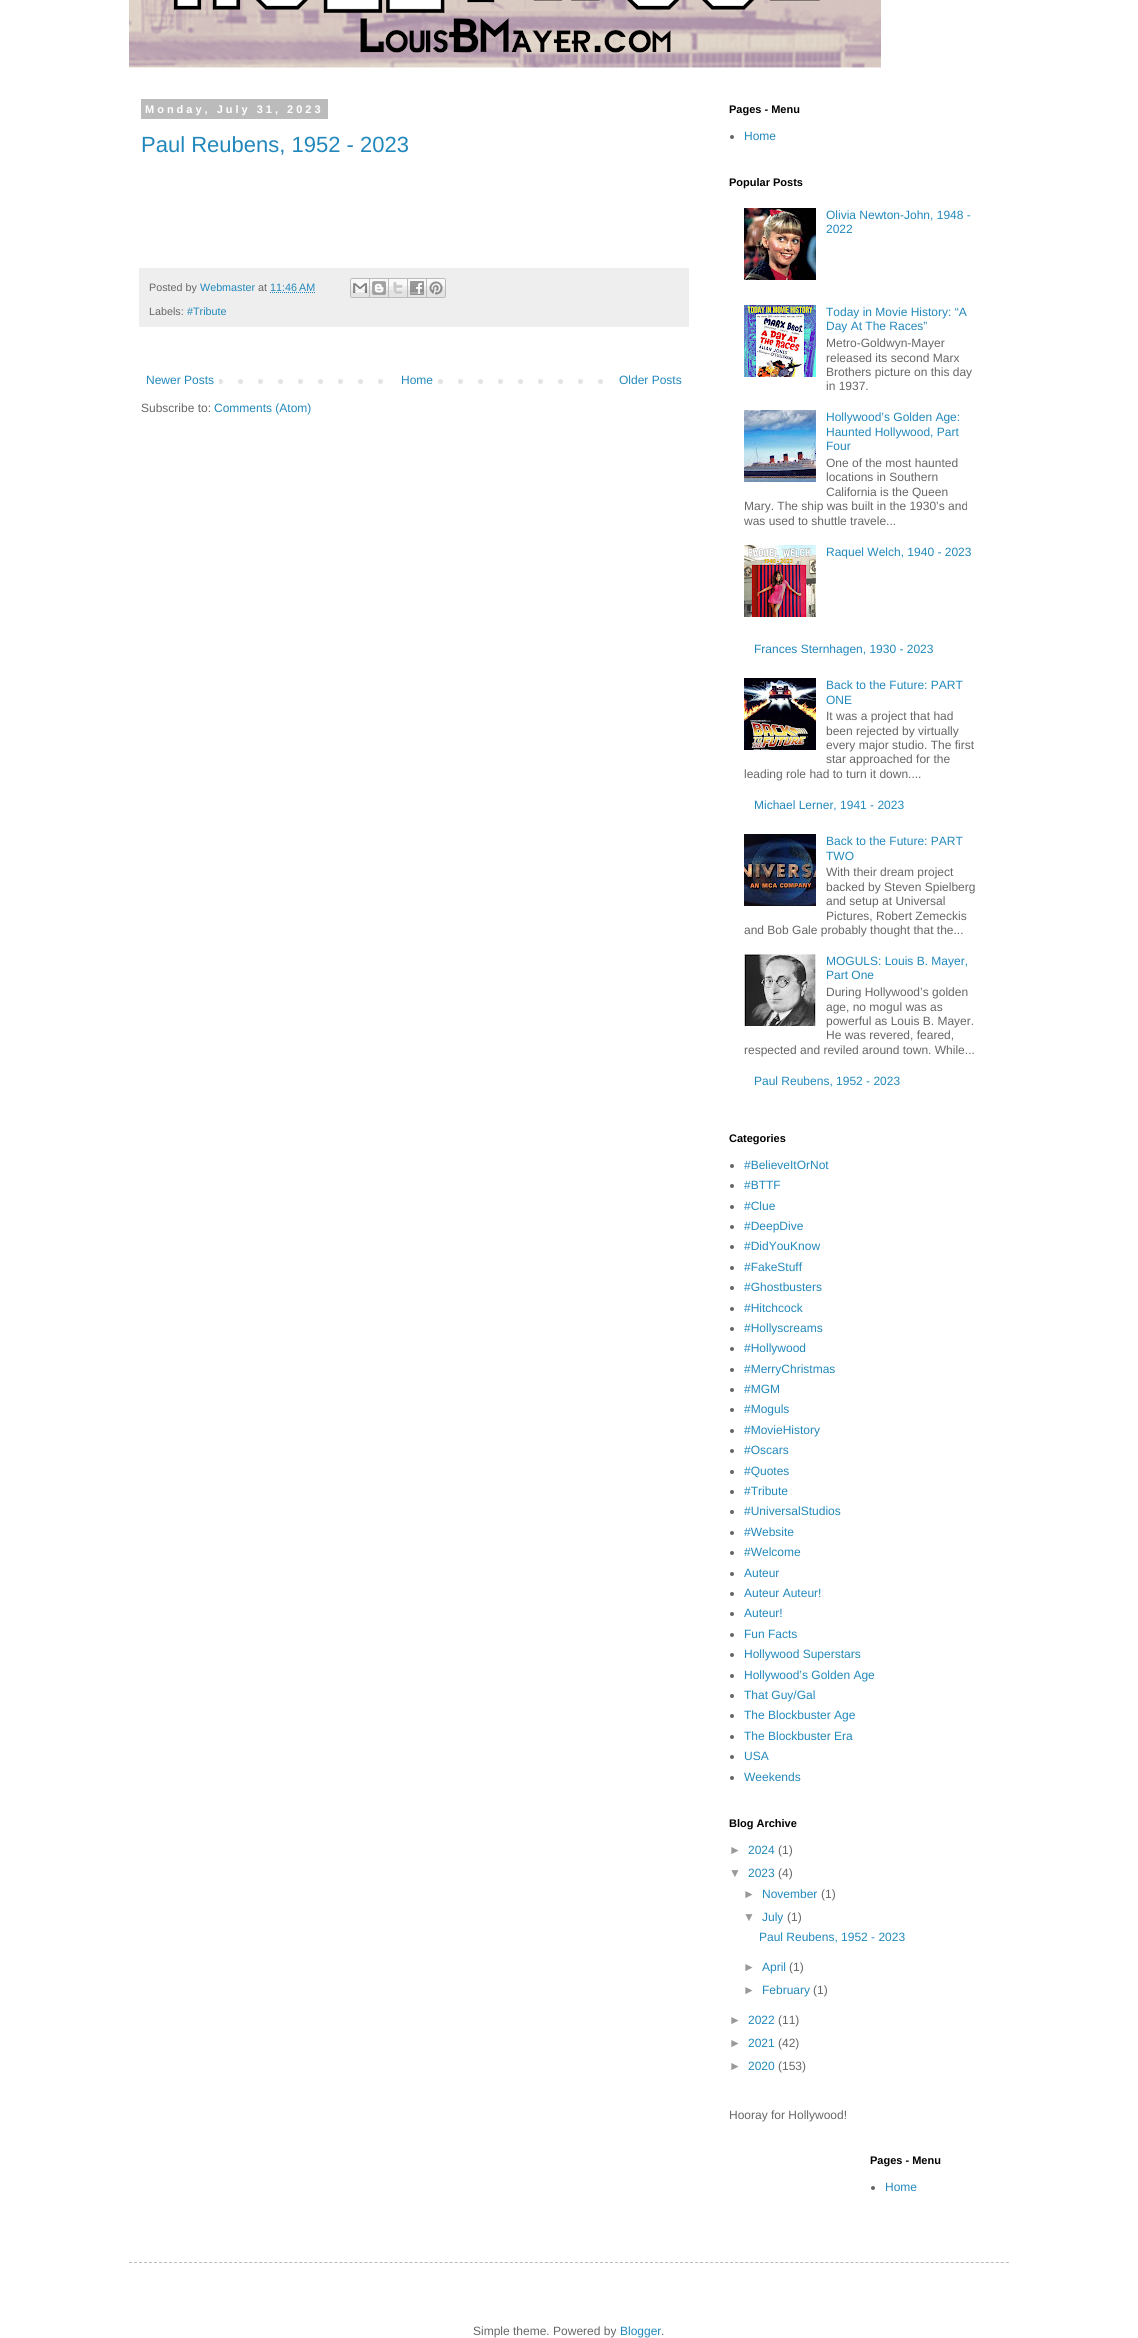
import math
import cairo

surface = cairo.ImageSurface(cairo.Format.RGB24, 1138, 2338)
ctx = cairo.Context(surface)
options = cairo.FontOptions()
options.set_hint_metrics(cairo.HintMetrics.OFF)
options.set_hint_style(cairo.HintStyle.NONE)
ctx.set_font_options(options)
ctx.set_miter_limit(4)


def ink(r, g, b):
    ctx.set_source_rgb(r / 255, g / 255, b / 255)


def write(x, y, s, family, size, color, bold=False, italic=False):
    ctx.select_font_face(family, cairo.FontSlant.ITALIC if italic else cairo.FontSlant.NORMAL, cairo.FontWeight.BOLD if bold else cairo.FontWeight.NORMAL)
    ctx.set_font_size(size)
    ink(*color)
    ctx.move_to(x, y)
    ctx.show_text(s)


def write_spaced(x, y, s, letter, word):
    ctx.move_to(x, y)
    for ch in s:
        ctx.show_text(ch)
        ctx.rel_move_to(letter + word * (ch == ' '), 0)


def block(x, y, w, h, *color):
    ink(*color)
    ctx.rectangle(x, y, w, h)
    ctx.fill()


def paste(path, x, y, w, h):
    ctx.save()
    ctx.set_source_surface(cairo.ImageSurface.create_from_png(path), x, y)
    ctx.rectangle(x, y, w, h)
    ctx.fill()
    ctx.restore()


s1 = dict(family="Liberation Sans", size=22, color=(34, 136, 187))
s2 = dict(family="Liberation Sans", size=10.75, color=(102, 102, 102))
s3 = dict(family="Liberation Sans", size=10.75, color=(34, 136, 187))
s4 = dict(family="Liberation Sans", size=12, color=(34, 136, 187))
s5 = dict(family="Liberation Sans", size=12, color=(102, 102, 102))
s6 = dict(family="Liberation Sans", size=11, color=(0, 0, 0), bold=True)
s7 = dict(family="Liberation Sans", size=12, color=(153, 153, 153))

ink(255, 255, 255)
ctx.paint()
paste("pic1.png", 129, 0, 752, 68)
block(141, 99, 187, 20, 187, 187, 187)
ctx.select_font_face("Liberation Sans", cairo.FontSlant.NORMAL, cairo.FontWeight.BOLD)
ctx.set_font_size(11)
ink(255, 255, 255)
write_spaced(145, 113, "Monday, July 31, 2023", 3, 0)
write(141, 152, "Paul Reubens, 1952 - 2023", **s1)
block(139, 268, 550, 59, 238, 238, 238)
write(149, 291, "Posted by", **s2)
write(200, 291, "Webmaster", **s3)
write(258, 291, "at", **s2)
write(270, 291, "11:46 AM", **s3)
ctx.new_path()
ctx.move_to(270, 292.5)
ctx.line_to(315.5, 292.5)
ctx.set_line_width(1)
ctx.set_dash([1, 1])
ctx.stroke()
paste("pic2.png", 350, 278, 20, 20)
paste("pic3.png", 370, 278, 19, 20)
paste("pic4.png", 389, 278, 19, 20)
paste("pic5.png", 408, 278, 19, 20)
paste("pic6.png", 427, 278, 19, 20)
write(149, 315, "Labels:", **s2)
write(187, 315, "#Tribute", **s3)
paste("pic7.png", 219, 379, 384, 5)
write(146, 384, "Newer Posts", **s4)
block(398, 379, 26, 5, 255, 255, 255)
write(401, 384, "Home", **s4)
write(619, 384, "Older Posts", **s4)
write(141, 412, "Subscribe to:", **s5)
write(214, 412, "Comments (Atom)", **s4)
write(729, 113, "Pages - Menu", **s6)
ink(102, 102, 102)
ctx.new_path()
ctx.arc(732, 137, 2, 0, 2 * math.pi)
ctx.fill()
write(744, 140, "Home", **s4)
write(729, 186, "Popular Posts", **s6)
paste("pic8.png", 744, 208, 72, 72)
write(826, 219, "Olivia Newton-John, 1948 -", **s4)
write(826, 233, "2022", **s4)
paste("pic9.png", 744, 305, 72, 72)
write(826, 316, "Today in Movie History: “A", **s4)
write(826, 330, "Day At The Races”", **s4)
write(826, 347, "Metro-Goldwyn-Mayer", **s5)
write(826, 362, "released its second Marx", **s5)
write(826, 376, "Brothers picture on this day", **s5)
write(826, 390, "in 1937.", **s5)
paste("pic10.png", 744, 410, 72, 72)
write(826, 421, "Hollywood’s Golden Age:", **s4)
write(826, 436, "Haunted Hollywood, Part", **s4)
write(826, 450, "Four", **s4)
write(826, 467, "One of the most haunted", **s5)
write(826, 481, "locations in Southern", **s5)
write(826, 496, "California is the Queen", **s5)
write(744, 510, "Mary. The ship was built in the 1930’s and", **s5)
write(744, 525, "was used to shuttle travele...", **s5)
paste("pic11.png", 744, 545, 72, 72)
write(826, 556, "Raquel Welch, 1940 - 2023", **s4)
write(754, 653, "Frances Sternhagen, 1930 - 2023", **s4)
paste("pic12.png", 744, 678, 72, 72)
write(826, 689, "Back to the Future: PART", **s4)
write(826, 704, "ONE", **s4)
write(826, 720, "It was a project that had", **s5)
write(826, 735, "been rejected by virtually", **s5)
write(826, 749, "every major studio. The first", **s5)
write(826, 763, "star approached for the", **s5)
write(744, 778, "leading role had to turn it down....", **s5)
write(754, 809, "Michael Lerner, 1941 - 2023", **s4)
paste("pic13.png", 744, 834, 72, 72)
write(826, 845, "Back to the Future: PART", **s4)
write(826, 860, "TWO", **s4)
write(826, 876, "With their dream project", **s5)
write(826, 891, "backed by Steven Spielberg", **s5)
write(826, 905, "and setup at Universal", **s5)
write(826, 920, "Pictures, Robert Zemeckis", **s5)
write(744, 934, "and Bob Gale probably thought that the...", **s5)
paste("pic14.png", 744, 954, 72, 72)
write(826, 965, "MOGULS: Louis B. Mayer,", **s4)
write(826, 979, "Part One", **s4)
write(826, 996, "During Hollywood’s golden", **s5)
write(826, 1011, "age, no mogul was as", **s5)
write(826, 1025, "powerful as Louis B. Mayer.", **s5)
write(826, 1039, "He was revered, feared,", **s5)
write(744, 1054, "respected and reviled around town. While...", **s5)
write(754, 1085, "Paul Reubens, 1952 - 2023", **s4)
write(729, 1142, "Categories", **s6)
ink(102, 102, 102)
ctx.new_path()
ctx.arc(732, 1166, 2, 0, 2 * math.pi)
ctx.fill()
write(744, 1169, "#BelieveItOrNot", **s4)
ink(102, 102, 102)
ctx.new_path()
ctx.arc(732, 1186, 2, 0, 2 * math.pi)
ctx.fill()
write(744, 1189, "#BTTF", **s4)
ink(102, 102, 102)
ctx.new_path()
ctx.arc(732, 1207, 2, 0, 2 * math.pi)
ctx.fill()
write(744, 1210, "#Clue", **s4)
ink(102, 102, 102)
ctx.new_path()
ctx.arc(732, 1227, 2, 0, 2 * math.pi)
ctx.fill()
write(744, 1230, "#DeepDive", **s4)
ink(102, 102, 102)
ctx.new_path()
ctx.arc(732, 1247, 2, 0, 2 * math.pi)
ctx.fill()
write(744, 1250, "#DidYouKnow", **s4)
ink(102, 102, 102)
ctx.new_path()
ctx.arc(732, 1268, 2, 0, 2 * math.pi)
ctx.fill()
write(744, 1271, "#FakeStuff", **s4)
ink(102, 102, 102)
ctx.new_path()
ctx.arc(732, 1288, 2, 0, 2 * math.pi)
ctx.fill()
write(744, 1291, "#Ghostbusters", **s4)
ink(102, 102, 102)
ctx.new_path()
ctx.arc(732, 1309, 2, 0, 2 * math.pi)
ctx.fill()
write(744, 1312, "#Hitchcock", **s4)
ink(102, 102, 102)
ctx.new_path()
ctx.arc(732, 1329, 2, 0, 2 * math.pi)
ctx.fill()
write(744, 1332, "#Hollyscreams", **s4)
ink(102, 102, 102)
ctx.new_path()
ctx.arc(732, 1349, 2, 0, 2 * math.pi)
ctx.fill()
write(744, 1352, "#Hollywood", **s4)
ink(102, 102, 102)
ctx.new_path()
ctx.arc(732, 1370, 2, 0, 2 * math.pi)
ctx.fill()
write(744, 1373, "#MerryChristmas", **s4)
ink(102, 102, 102)
ctx.new_path()
ctx.arc(732, 1390, 2, 0, 2 * math.pi)
ctx.fill()
write(744, 1393, "#MGM", **s4)
ink(102, 102, 102)
ctx.new_path()
ctx.arc(732, 1410, 2, 0, 2 * math.pi)
ctx.fill()
write(744, 1413, "#Moguls", **s4)
ink(102, 102, 102)
ctx.new_path()
ctx.arc(732, 1431, 2, 0, 2 * math.pi)
ctx.fill()
write(744, 1434, "#MovieHistory", **s4)
ink(102, 102, 102)
ctx.new_path()
ctx.arc(732, 1451, 2, 0, 2 * math.pi)
ctx.fill()
write(744, 1454, "#Oscars", **s4)
ink(102, 102, 102)
ctx.new_path()
ctx.arc(732, 1472, 2, 0, 2 * math.pi)
ctx.fill()
write(744, 1475, "#Quotes", **s4)
ink(102, 102, 102)
ctx.new_path()
ctx.arc(732, 1492, 2, 0, 2 * math.pi)
ctx.fill()
write(744, 1495, "#Tribute", **s4)
ink(102, 102, 102)
ctx.new_path()
ctx.arc(732, 1512, 2, 0, 2 * math.pi)
ctx.fill()
write(744, 1515, "#UniversalStudios", **s4)
ink(102, 102, 102)
ctx.new_path()
ctx.arc(732, 1533, 2, 0, 2 * math.pi)
ctx.fill()
write(744, 1536, "#Website", **s4)
ink(102, 102, 102)
ctx.new_path()
ctx.arc(732, 1553, 2, 0, 2 * math.pi)
ctx.fill()
write(744, 1556, "#Welcome", **s4)
ink(102, 102, 102)
ctx.new_path()
ctx.arc(732, 1574, 2, 0, 2 * math.pi)
ctx.fill()
write(744, 1577, "Auteur", **s4)
ink(102, 102, 102)
ctx.new_path()
ctx.arc(732, 1594, 2, 0, 2 * math.pi)
ctx.fill()
write(744, 1597, "Auteur Auteur!", **s4)
ink(102, 102, 102)
ctx.new_path()
ctx.arc(732, 1614, 2, 0, 2 * math.pi)
ctx.fill()
write(744, 1617, "Auteur!", **s4)
ink(102, 102, 102)
ctx.new_path()
ctx.arc(732, 1635, 2, 0, 2 * math.pi)
ctx.fill()
write(744, 1638, "Fun Facts", **s4)
ink(102, 102, 102)
ctx.new_path()
ctx.arc(732, 1655, 2, 0, 2 * math.pi)
ctx.fill()
write(744, 1658, "Hollywood Superstars", **s4)
ink(102, 102, 102)
ctx.new_path()
ctx.arc(732, 1676, 2, 0, 2 * math.pi)
ctx.fill()
write(744, 1679, "Hollywood’s Golden Age", **s4)
ink(102, 102, 102)
ctx.new_path()
ctx.arc(732, 1696, 2, 0, 2 * math.pi)
ctx.fill()
write(744, 1699, "That Guy/Gal", **s4)
ink(102, 102, 102)
ctx.new_path()
ctx.arc(732, 1716, 2, 0, 2 * math.pi)
ctx.fill()
write(744, 1719, "The Blockbuster Age", **s4)
ink(102, 102, 102)
ctx.new_path()
ctx.arc(732, 1737, 2, 0, 2 * math.pi)
ctx.fill()
write(744, 1740, "The Blockbuster Era", **s4)
ink(102, 102, 102)
ctx.new_path()
ctx.arc(732, 1757, 2, 0, 2 * math.pi)
ctx.fill()
write(744, 1760, "USA", **s4)
ink(102, 102, 102)
ctx.new_path()
ctx.arc(732, 1778, 2, 0, 2 * math.pi)
ctx.fill()
write(744, 1781, "Weekends", **s4)
write(729, 1827, "Blog Archive", **s6)
write(729, 1854, "►", **s7)
write(748, 1854, "2024", **s4)
write(778, 1854, "(1)", **s5)
write(729, 1877, "▼", **s7)
write(748, 1877, "2023", **s4)
write(778, 1877, "(4)", **s5)
write(743, 1898, "►", **s7)
write(762, 1898, "November", **s4)
write(821, 1898, "(1)", **s5)
write(743, 1921, "▼", **s7)
write(762, 1921, "July", **s4)
write(787, 1921, "(1)", **s5)
write(759, 1941, "Paul Reubens, 1952 - 2023", **s4)
write(743, 1971, "►", **s7)
write(762, 1971, "April", **s4)
write(789, 1971, "(1)", **s5)
write(743, 1994, "►", **s7)
write(762, 1994, "February", **s4)
write(813, 1994, "(1)", **s5)
write(729, 2024, "►", **s7)
write(748, 2024, "2022", **s4)
write(778, 2024, "(11)", **s5)
write(729, 2047, "►", **s7)
write(748, 2047, "2021", **s4)
write(778, 2047, "(42)", **s5)
write(729, 2070, "►", **s7)
write(748, 2070, "2020", **s4)
write(778, 2070, "(153)", **s5)
write(729, 2119, "Hooray for Hollywood!", **s5)
write(870, 2164, "Pages - Menu", **s6)
ink(102, 102, 102)
ctx.new_path()
ctx.arc(873, 2188, 2, 0, 2 * math.pi)
ctx.fill()
write(885, 2191, "Home", **s4)
ctx.new_path()
ctx.move_to(129, 2262.5)
ctx.line_to(1009, 2262.5)
ink(187, 187, 187)
ctx.set_dash([3, 2.01])
ctx.stroke()
write(473, 2335, "Simple theme. Powered by", **s5)
write(620, 2335, "Blogger", **s4)
write(661, 2335, ".", **s5)
surface.write_to_png("screenshot.png")
